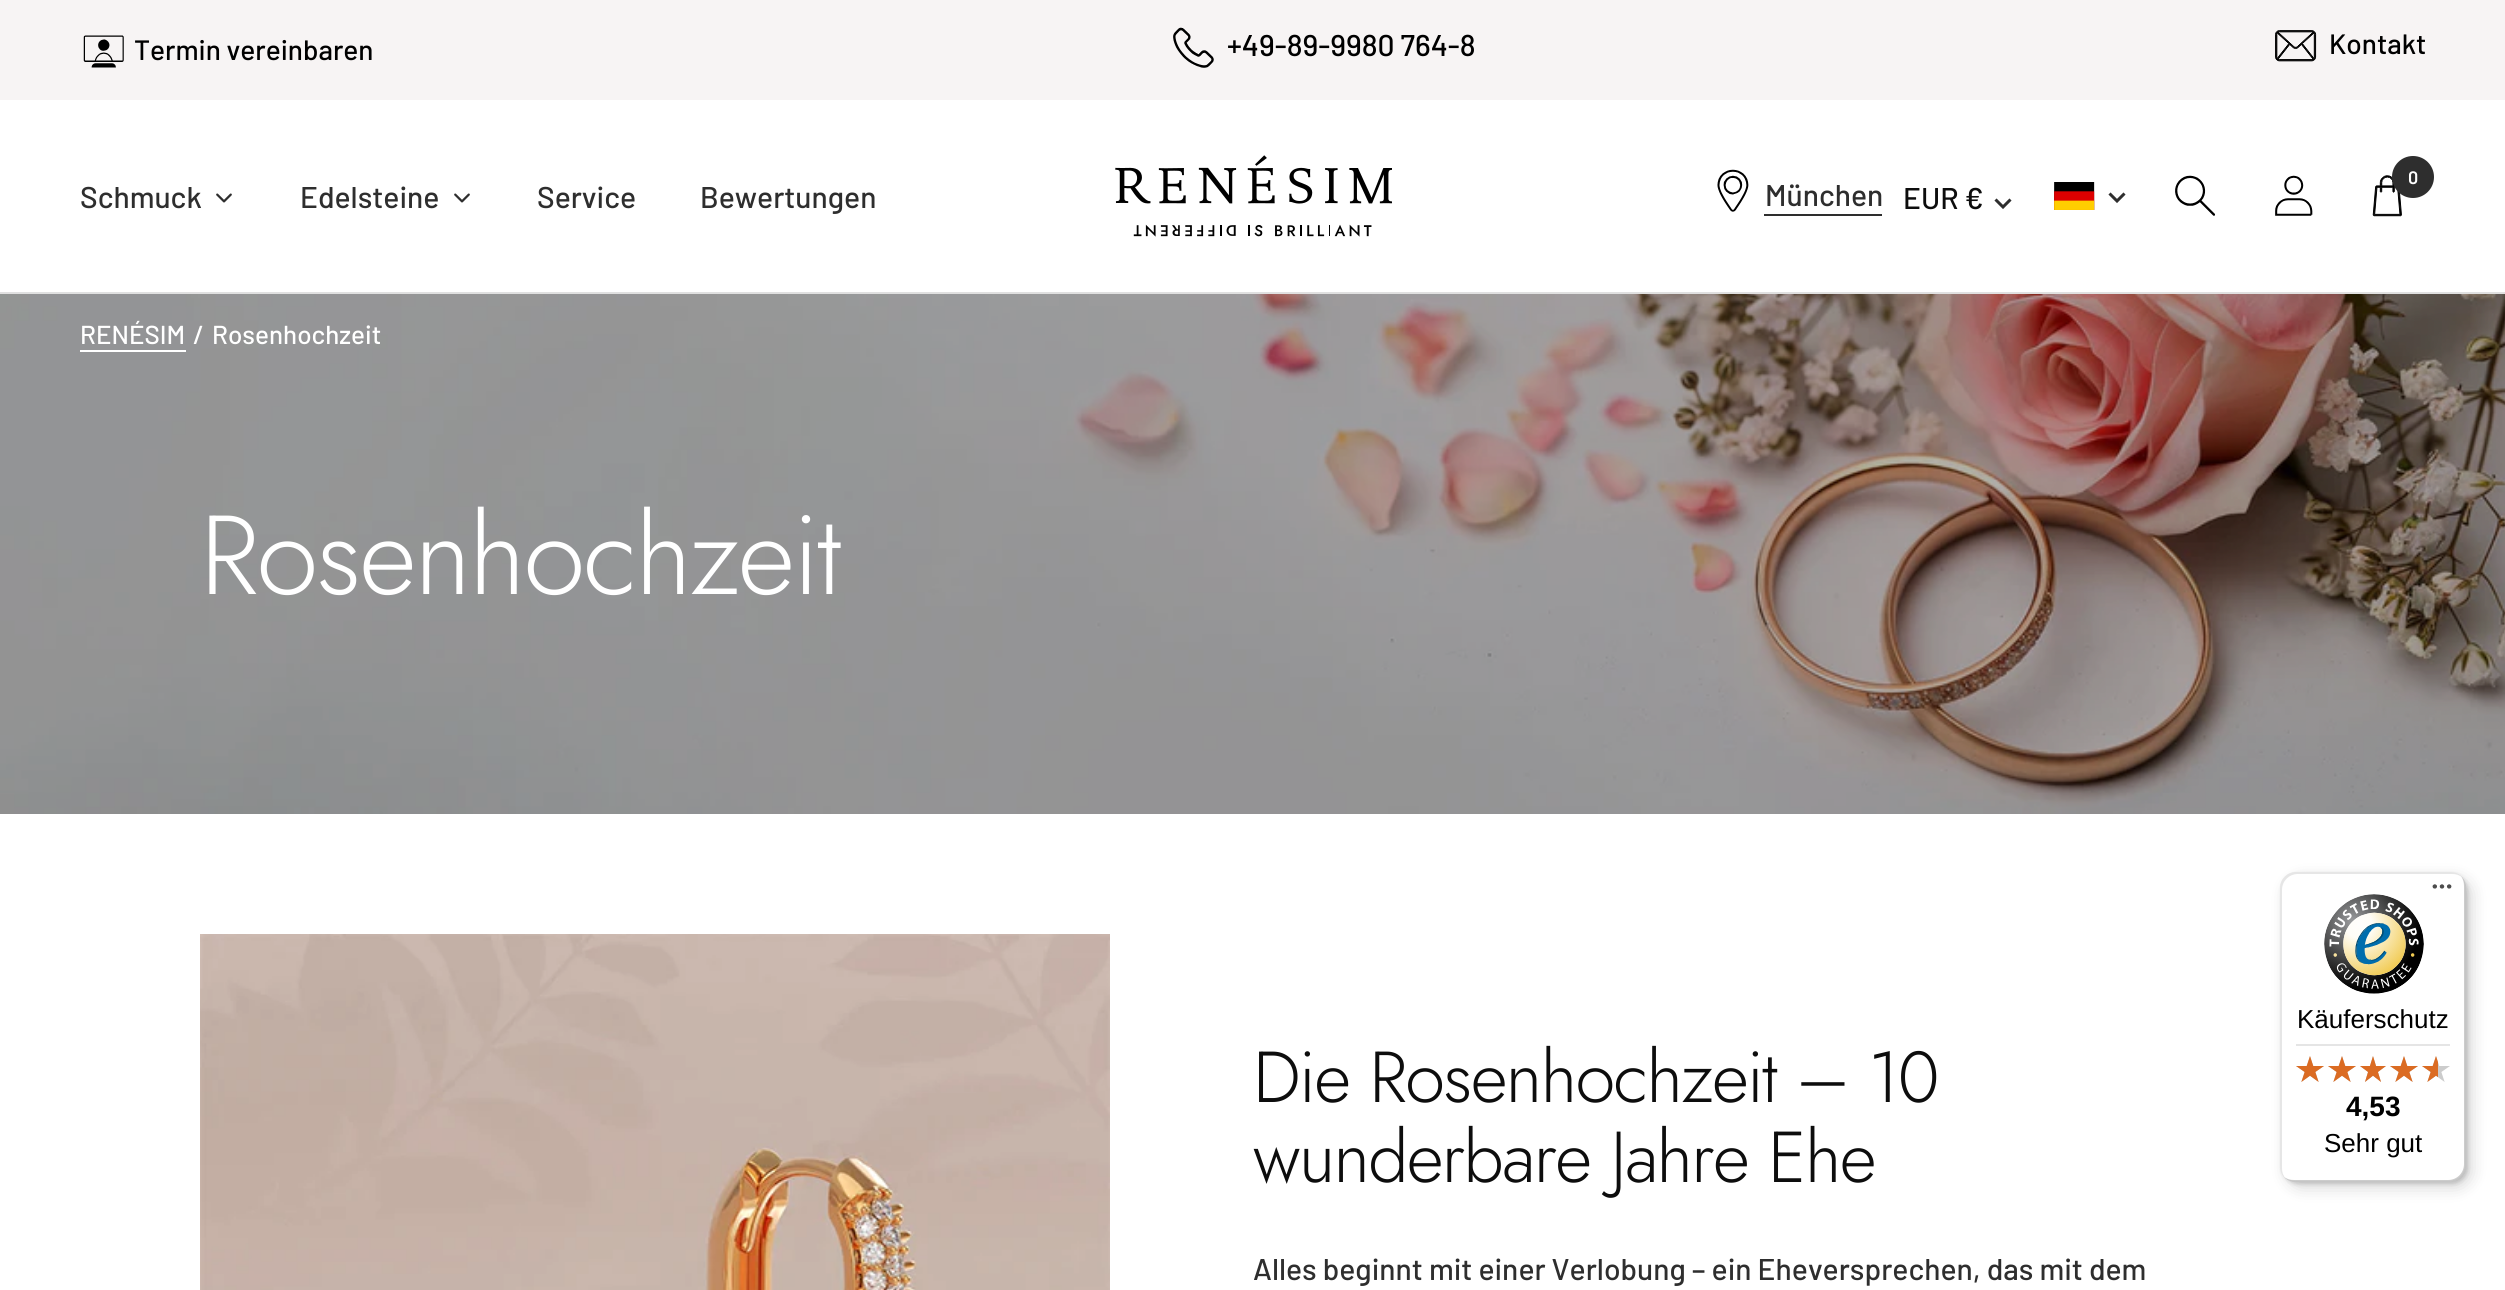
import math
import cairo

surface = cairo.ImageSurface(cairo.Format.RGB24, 2505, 1290)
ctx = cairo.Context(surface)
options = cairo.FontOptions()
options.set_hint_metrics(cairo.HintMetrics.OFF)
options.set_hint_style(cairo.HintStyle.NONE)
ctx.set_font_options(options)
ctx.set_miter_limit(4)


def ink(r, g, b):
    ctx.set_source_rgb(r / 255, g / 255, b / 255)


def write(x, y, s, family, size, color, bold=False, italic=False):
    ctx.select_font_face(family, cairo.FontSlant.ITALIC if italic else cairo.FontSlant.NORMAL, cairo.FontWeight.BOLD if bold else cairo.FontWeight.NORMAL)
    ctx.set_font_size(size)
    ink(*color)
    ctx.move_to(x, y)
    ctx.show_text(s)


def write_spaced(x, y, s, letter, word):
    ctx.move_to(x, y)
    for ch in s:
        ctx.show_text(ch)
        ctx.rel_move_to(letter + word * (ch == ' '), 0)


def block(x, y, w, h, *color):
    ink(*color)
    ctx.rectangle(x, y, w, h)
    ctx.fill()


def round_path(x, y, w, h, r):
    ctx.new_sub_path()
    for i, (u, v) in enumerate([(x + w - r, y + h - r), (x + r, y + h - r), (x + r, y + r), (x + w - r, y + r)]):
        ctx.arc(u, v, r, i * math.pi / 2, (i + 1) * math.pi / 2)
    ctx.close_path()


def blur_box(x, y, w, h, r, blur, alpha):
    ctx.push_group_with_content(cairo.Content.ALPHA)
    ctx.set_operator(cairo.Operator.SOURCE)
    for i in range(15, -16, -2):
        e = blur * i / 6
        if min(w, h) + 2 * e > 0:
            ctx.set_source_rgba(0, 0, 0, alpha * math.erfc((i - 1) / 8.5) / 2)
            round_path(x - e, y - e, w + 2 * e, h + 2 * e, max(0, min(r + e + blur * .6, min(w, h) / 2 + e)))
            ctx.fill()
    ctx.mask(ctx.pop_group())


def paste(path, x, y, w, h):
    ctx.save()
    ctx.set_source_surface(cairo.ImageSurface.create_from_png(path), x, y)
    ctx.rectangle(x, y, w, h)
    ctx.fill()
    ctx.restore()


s1 = dict(family="Barlow Medium", size=28, color=(0, 0, 0))
s2 = dict(family="Barlow Medium", size=30, color=(0, 0, 0))
s3 = dict(family="Barlow Medium", size=30, color=(46, 46, 46))
s4 = dict(family="Barlow SemiBold", size=18, color=(255, 255, 255))
s5 = dict(family="Barlow Medium", size=30, color=(13, 13, 13))
s6 = dict(family="Barlow Medium", size=26, color=(255, 255, 255))
s7 = dict(family="Liberation Sans", size=26, color=(0, 0, 0))
s8 = dict(family="Liberation Sans", size=28, color=(0, 0, 0), bold=True)

ink(255, 255, 255)
ctx.paint()
block(0, 0, 2505, 100, 247, 244, 244)
paste("pic1.png", 83, 35, 41, 33)
write(134, 60, "Termin vereinbaren", **s1)
paste("pic2.png", 1173, 27, 41, 41)
write(1227, 56, "+49-89-9980 764-8", **s2)
paste("pic3.png", 2275, 30, 42, 32)
write(2329, 54, "Kontakt", **s1)
block(0, 292, 2505, 2, 224, 224, 224)
write(80, 208, "Schmuck", **s3)
paste("pic4.png", 216, 193, 16, 10)
write(300, 208, "Edelsteine", **s3)
paste("pic4.png", 454, 193, 16, 10)
write(537, 208, "Service", **s3)
write(700, 208, "Bewertungen", **s3)
paste("pic5.png", 1115, 155, 277, 82)
paste("pic6.png", 2175, 175, 40, 41)
paste("pic7.png", 2275, 175, 38, 41)
paste("pic8.png", 2372, 175, 30, 42)
ctx.arc(2413, 177, 21, 0, 2 * math.pi)
ctx.fill()
write(2408, 184, "0", **s4)
paste("pic9.png", 1717, 169, 32, 43)
write(1765, 206, "München", **s3)
block(1764, 214, 118, 2, 46, 46, 46)
write(1903, 209, "EUR €", **s5)
ctx.new_path()
ctx.move_to(1995.5, 199.5)
ctx.line_to(2003, 207)
ctx.line_to(2010.5, 199.5)
ink(46, 46, 46)
ctx.set_line_width(3)
ctx.stroke()
paste("pic10.png", 2054, 182, 41, 28)
ctx.new_path()
ctx.move_to(2109.5, 193.5)
ctx.line_to(2117, 201)
ctx.line_to(2124.5, 193.5)
ctx.stroke()
paste("pic11.png", 0, 294, 2505, 520)
write(80, 344, "RENÉSIM", **s6)
block(80, 350, 106, 2, 255, 255, 255)
write(193, 344, "/", **s6)
write(212, 344, "Rosenhochzeit", **s6)
ctx.select_font_face("Jost Light")
ctx.set_font_size(112)
write_spaced(200, 594, "Rosenhochzeit", -2, 0)
paste("pic12.png", 200, 934, 910, 356)
ctx.set_font_size(72)
ink(13, 13, 13)
write_spaced(1253, 1102, "Die Rosenhochzeit – 10", -1.6, 0)
write_spaced(1253, 1182, "wunderbare Jahre Ehe", -1.6, 0)
write(1253, 1280, "Alles beginnt mit einer Verlobung – ein Eheversprechen, das mit dem", **s3)
ink(0, 0, 0)
blur_box(2286, 878, 186, 310, 16, 8, 0.15)
blur_box(2282, 874, 186, 310, 16, 2, 0.15)
ink(255, 255, 255)
round_path(2280, 872, 186, 310, 16)
ctx.fill()
ctx.set_source_rgba(0, 0, 0, 0.1)
ctx.new_path()
ctx.move_to(2298, 874)
ctx.line_to(2452, 874)
ctx.curve_to(2456, 874, 2459, 875, 2462, 877)
ctx.curve_to(2459, 874, 2455, 872, 2450, 872)
ctx.line_to(2296, 872)
ctx.curve_to(2287, 872, 2280, 879, 2280, 888)
ctx.line_to(2280, 1166)
ctx.curve_to(2280, 1171, 2282, 1175, 2285, 1178)
ctx.curve_to(2283, 1175, 2282, 1172, 2282, 1168)
ctx.line_to(2282, 890)
ctx.curve_to(2282, 881, 2289, 874, 2298, 874)
ctx.close_path()
ctx.fill()
ctx.set_source_rgba(0, 0, 0, 0.2)
ctx.new_path()
ctx.move_to(2284, 1177)
ctx.curve_to(2287, 1180, 2291, 1182, 2296, 1182)
ctx.line_to(2450, 1182)
ctx.curve_to(2459, 1182, 2466, 1175, 2466, 1166)
ctx.line_to(2466, 888)
ctx.curve_to(2466, 883, 2464, 879, 2461, 876)
ctx.curve_to(2463, 879, 2464, 882, 2464, 886)
ctx.line_to(2464, 1164)
ctx.curve_to(2464, 1173, 2457, 1180, 2448, 1180)
ctx.line_to(2294, 1180)
ctx.curve_to(2290, 1180, 2287, 1179, 2284, 1177)
ctx.close_path()
ctx.fill()
ctx.set_source_rgba(0.196, 0.196, 0.196, 0.2)
ctx.new_path()
ctx.move_to(2285, 1177)
ctx.curve_to(2288, 1180, 2292, 1182, 2296, 1182)
ctx.line_to(2450, 1182)
ctx.curve_to(2459, 1182, 2466, 1175, 2466, 1166)
ctx.line_to(2466, 888)
ctx.curve_to(2466, 884, 2464, 880, 2461, 877)
ctx.curve_to(2464, 880, 2465, 883, 2465, 887)
ctx.line_to(2465, 1165)
ctx.curve_to(2465, 1174, 2458, 1181, 2449, 1181)
ctx.line_to(2295, 1181)
ctx.curve_to(2291, 1181, 2288, 1180, 2285, 1177)
ctx.close_path()
ctx.fill()
ctx.set_source_rgba(1, 1, 1, 0.3)
ctx.new_path()
ctx.move_to(2285, 1177)
ctx.curve_to(2288, 1180, 2292, 1182, 2296, 1182)
ctx.line_to(2450, 1182)
ctx.curve_to(2459, 1182, 2466, 1175, 2466, 1166)
ctx.line_to(2466, 888)
ctx.curve_to(2466, 884, 2464, 880, 2461, 877)
ctx.curve_to(2464, 880, 2465, 883, 2465, 887)
ctx.line_to(2465, 1165)
ctx.curve_to(2465, 1174, 2458, 1181, 2449, 1181)
ctx.line_to(2295, 1181)
ctx.curve_to(2291, 1181, 2288, 1180, 2285, 1177)
ctx.close_path()
ctx.fill()
paste("pic13.png", 2432, 884, 20, 5)
paste("pic14.png", 2324, 894, 100, 100)
write(2297, 1028, "Käuferschutz", **s7)
block(2296, 1044, 154, 2, 229, 229, 229)
paste("pic15.png", 2296, 1056, 28, 26)
paste("pic15.png", 2328, 1056, 28, 26)
paste("pic16.png", 2360, 1056, 26, 26)
paste("pic15.png", 2390, 1056, 28, 26)
paste("pic15.png", 2422, 1056, 28, 26)
paste("pic17.png", 2296, 1056, 28, 26)
paste("pic17.png", 2328, 1056, 28, 26)
paste("pic18.png", 2360, 1056, 26, 26)
paste("pic17.png", 2390, 1056, 28, 26)
paste("pic19.png", 2422, 1056, 16, 26)
write(2346, 1116, "4,53", **s8)
write(2324, 1152, "Sehr gut", **s7)
surface.write_to_png("screenshot.png")
